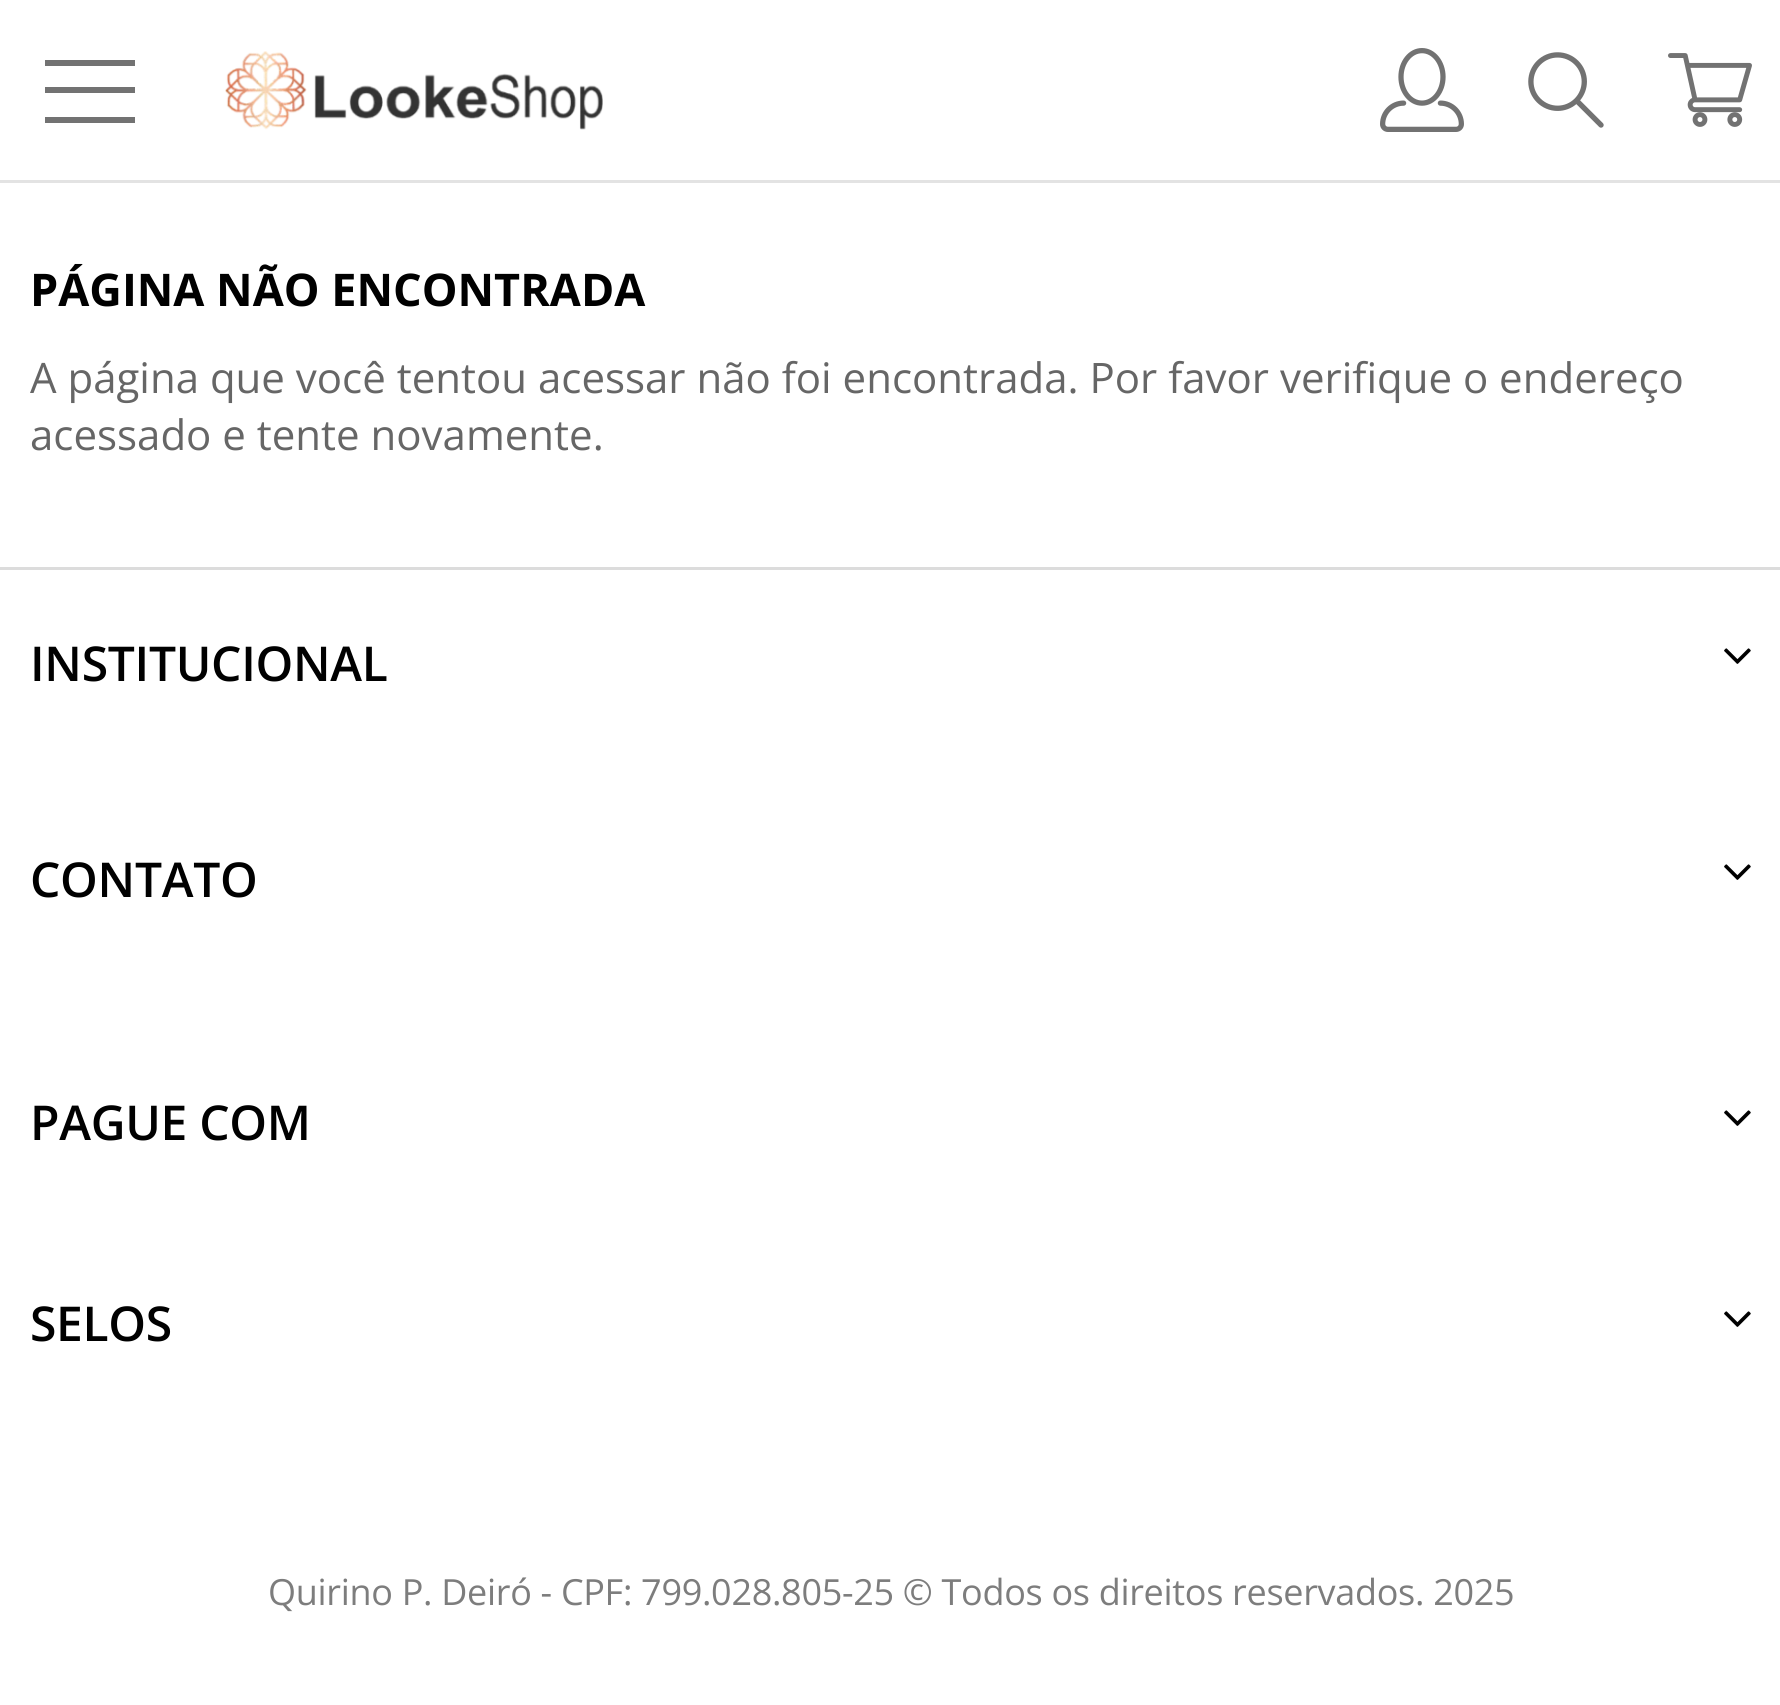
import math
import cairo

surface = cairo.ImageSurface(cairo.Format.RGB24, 1780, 1705)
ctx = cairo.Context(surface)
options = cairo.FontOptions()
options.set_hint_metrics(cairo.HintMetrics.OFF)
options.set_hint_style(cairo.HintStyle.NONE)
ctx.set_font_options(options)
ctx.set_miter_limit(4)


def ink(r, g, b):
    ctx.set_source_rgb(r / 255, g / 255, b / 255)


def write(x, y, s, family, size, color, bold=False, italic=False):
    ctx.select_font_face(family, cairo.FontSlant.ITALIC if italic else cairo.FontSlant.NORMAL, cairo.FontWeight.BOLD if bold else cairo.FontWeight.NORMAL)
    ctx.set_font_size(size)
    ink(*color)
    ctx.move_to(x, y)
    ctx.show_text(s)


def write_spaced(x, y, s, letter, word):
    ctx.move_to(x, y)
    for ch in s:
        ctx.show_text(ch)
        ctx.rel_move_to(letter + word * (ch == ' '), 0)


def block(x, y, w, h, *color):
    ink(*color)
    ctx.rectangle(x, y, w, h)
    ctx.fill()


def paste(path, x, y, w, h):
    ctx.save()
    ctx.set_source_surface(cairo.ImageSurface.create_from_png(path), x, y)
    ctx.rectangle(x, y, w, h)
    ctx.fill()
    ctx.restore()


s1 = dict(family="Open Sans", size=45, color=(0, 0, 0), bold=True)
s2 = dict(family="Open Sans", size=42, color=(102, 102, 102))

ink(255, 255, 255)
ctx.paint()
block(0, 180, 1780, 3, 227, 227, 227)
block(45, 60, 90, 6, 114, 114, 114)
block(45, 87, 90, 6, 114, 114, 114)
block(45, 117, 90, 6, 114, 114, 114)
paste("pic1.png", 225, 51, 378, 79)
paste("pic2.png", 1380, 48, 84, 84)
paste("pic3.png", 1528, 52, 76, 76)
paste("pic4.png", 1668, 53, 84, 74)
write(30, 306, "PÁGINA NÃO ENCONTRADA", **s1)
write(30, 393, "A página que você tentou acessar não foi encontrada. Por favor verifique o endereço", **s2)
write(30, 450, "acessado e tente novamente.", **s2)
block(0, 567, 1780, 3, 220, 220, 220)
ctx.select_font_face("Open Sans SemiBold")
ctx.set_font_size(48)
ink(0, 0, 0)
write_spaced(30, 681, "INSTITUCIONAL", -0.3, 0)
paste("pic5.png", 1724, 648, 27, 16)
write_spaced(30, 897, "CONTATO", -0.3, 0)
paste("pic5.png", 1724, 864, 27, 16)
write_spaced(30, 1140, "PAGUE COM", -0.3, 0)
paste("pic5.png", 1724, 1110, 27, 16)
write_spaced(30, 1341, "SELOS", -0.3, 0)
paste("pic5.png", 1724, 1311, 27, 16)
ctx.select_font_face("Open Sans")
ctx.set_font_size(36)
ink(125, 125, 125)
write_spaced(268, 1605, "Quirino P. Deiró - CPF: 799.028.805-25 © Todos os direitos reservados. 2025", -0.3, 0)
surface.write_to_png("screenshot.png")
